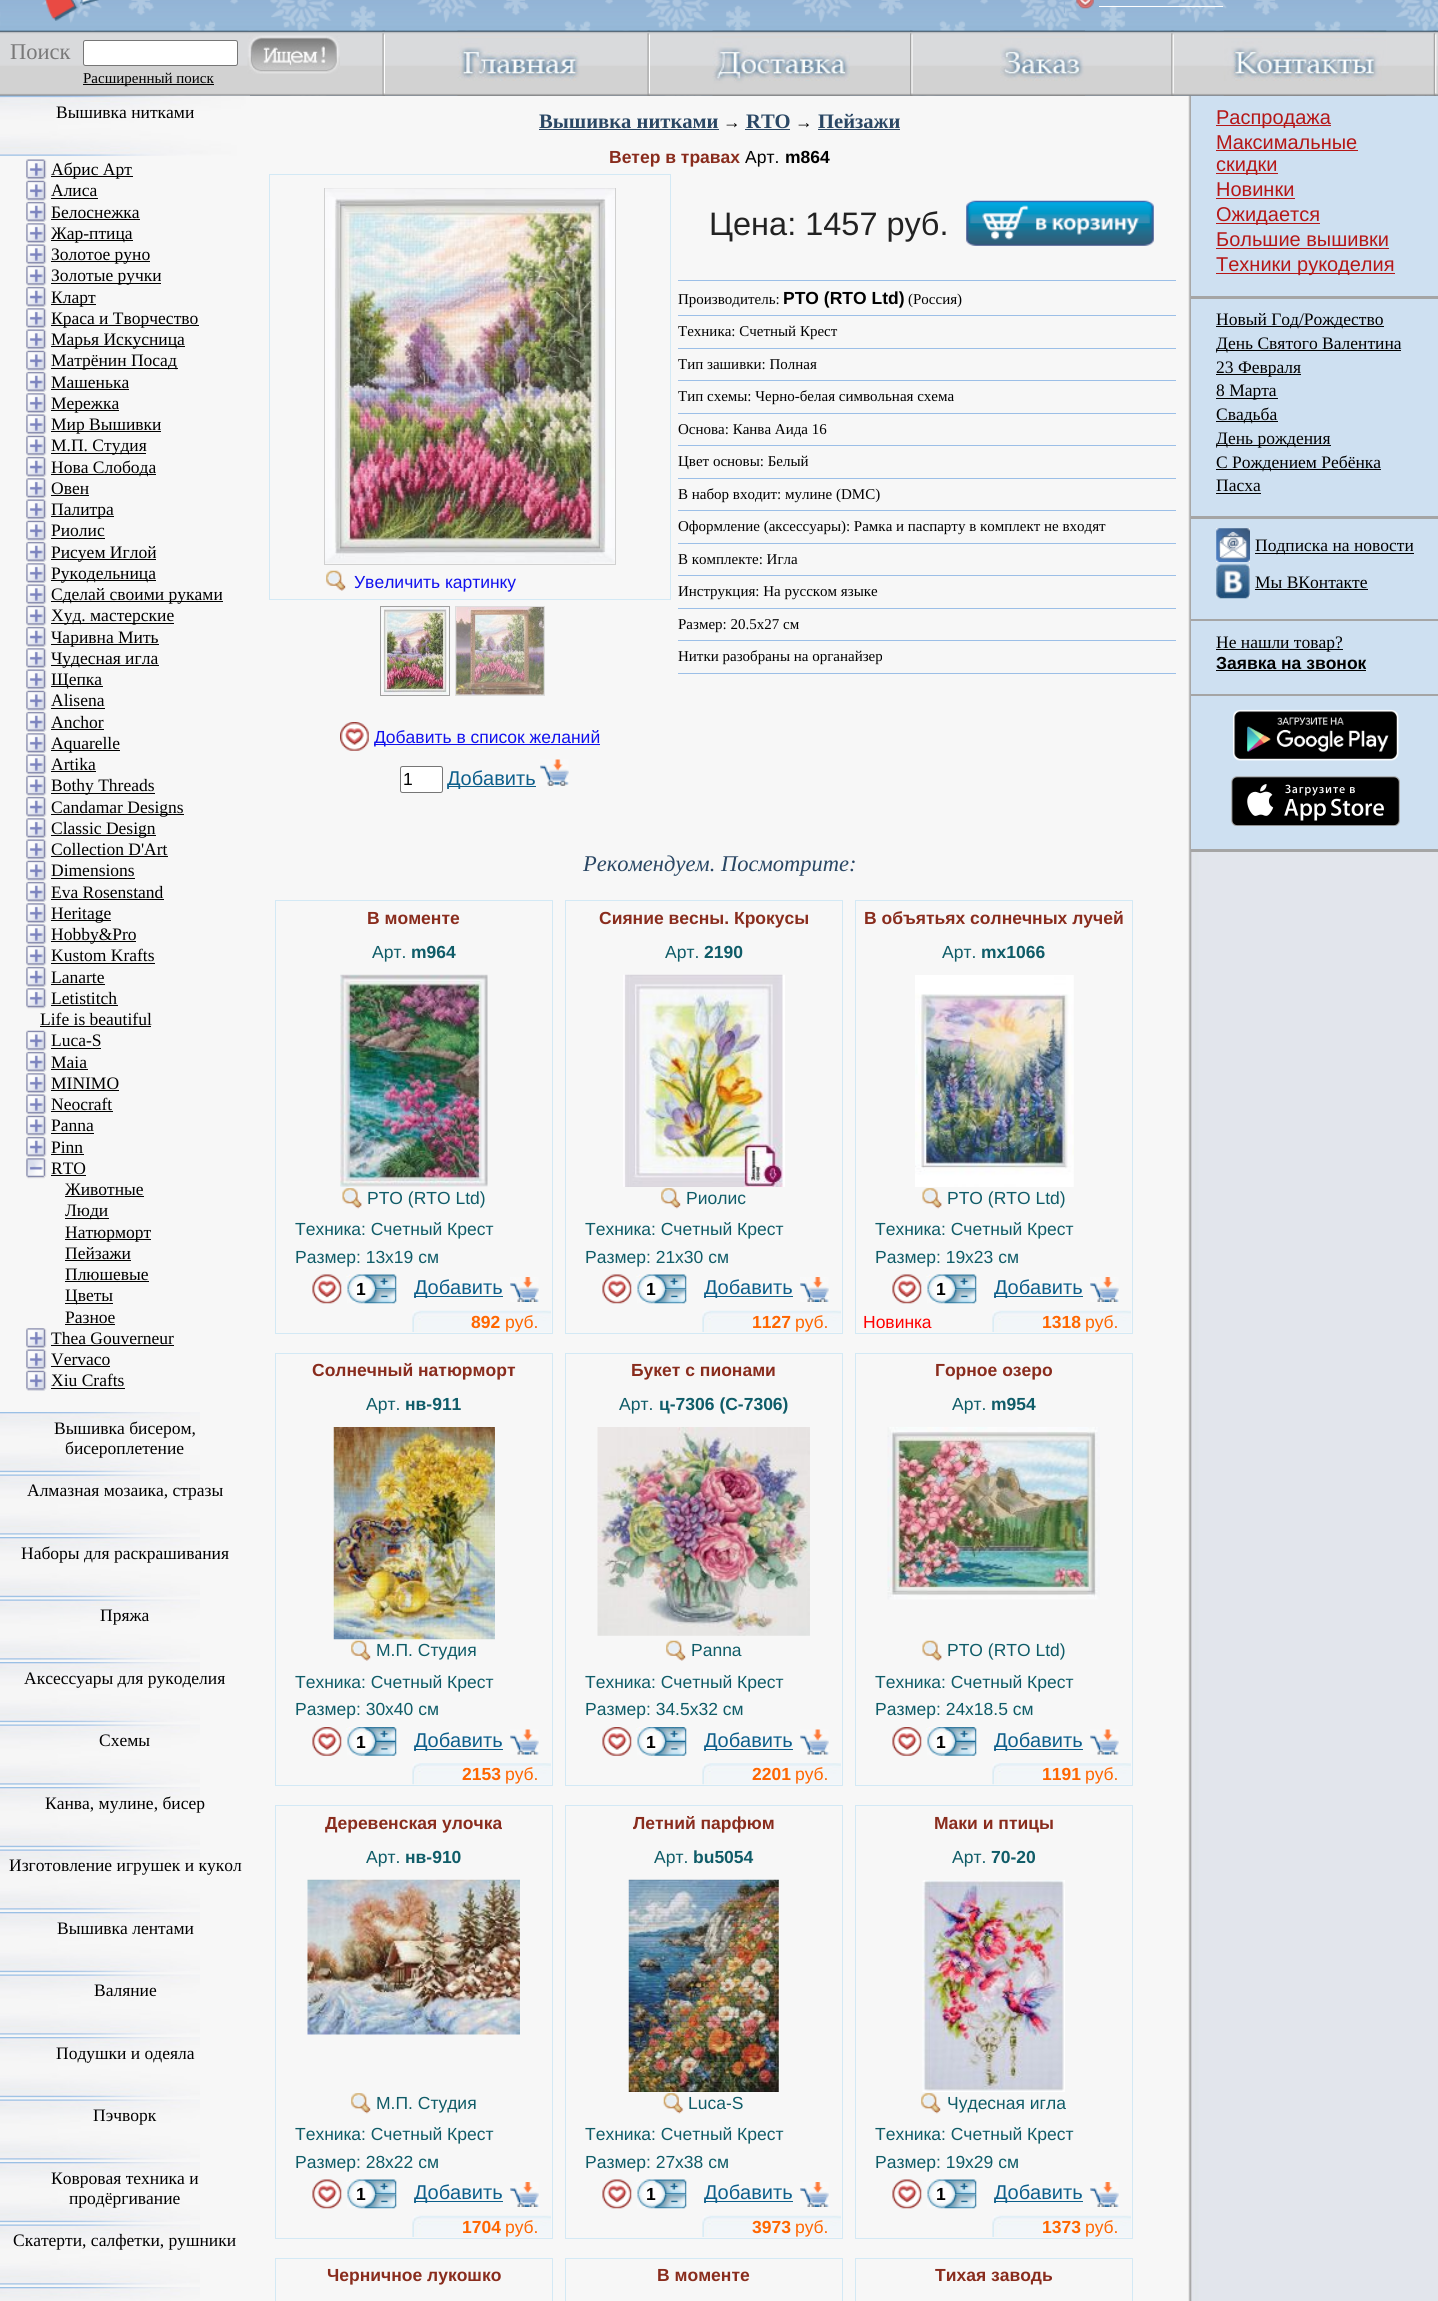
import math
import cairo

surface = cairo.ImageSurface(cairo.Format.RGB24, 1438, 2301)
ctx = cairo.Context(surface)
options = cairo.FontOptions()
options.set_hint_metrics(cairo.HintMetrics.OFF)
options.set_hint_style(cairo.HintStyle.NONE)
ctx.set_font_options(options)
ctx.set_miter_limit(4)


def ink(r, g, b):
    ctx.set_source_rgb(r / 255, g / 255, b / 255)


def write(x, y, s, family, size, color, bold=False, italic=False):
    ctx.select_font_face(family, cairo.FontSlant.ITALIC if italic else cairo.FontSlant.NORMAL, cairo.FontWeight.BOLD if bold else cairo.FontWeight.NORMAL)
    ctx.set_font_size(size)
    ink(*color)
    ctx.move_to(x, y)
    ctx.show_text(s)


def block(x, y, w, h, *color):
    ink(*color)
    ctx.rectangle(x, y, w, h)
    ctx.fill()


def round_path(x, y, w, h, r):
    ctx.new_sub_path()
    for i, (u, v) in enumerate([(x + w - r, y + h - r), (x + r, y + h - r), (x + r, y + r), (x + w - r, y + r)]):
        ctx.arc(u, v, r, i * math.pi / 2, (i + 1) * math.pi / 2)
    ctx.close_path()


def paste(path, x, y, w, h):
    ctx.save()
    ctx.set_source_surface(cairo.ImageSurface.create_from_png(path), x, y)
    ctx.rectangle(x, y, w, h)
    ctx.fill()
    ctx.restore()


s1 = dict(family="Liberation Serif", size=22.5, color=(121, 121, 121))
s2 = dict(family="Liberation Serif", size=15, color=(0, 0, 0))
s3 = dict(family="Liberation Serif", size=17.5, color=(0, 0, 0))
s4 = dict(family="Liberation Serif", size=20.6, color=(42, 71, 100), bold=True)
s5 = dict(family="Liberation Sans", size=17.5, color=(0, 0, 0))
s6 = dict(family="Liberation Sans", size=17.5, color=(137, 44, 29), bold=True)
s7 = dict(family="Liberation Sans", size=17.5, color=(0, 0, 0), bold=True)
s8 = dict(family="Liberation Sans", size=17.5, color=(17, 17, 238))
s9 = dict(family="Liberation Sans", size=20, color=(13, 95, 139))
s10 = dict(family="Liberation Sans", size=32.5, color=(34, 34, 34))
s11 = dict(family="Liberation Serif", size=22.5, color=(42, 71, 100), italic=True)
s12 = dict(family="Liberation Sans", size=17.5, color=(15, 92, 104))
s13 = dict(family="Liberation Sans", size=17.5, color=(15, 92, 104), bold=True)
s14 = dict(family="Liberation Sans", size=17.5, color=(255, 102, 0), bold=True)
s15 = dict(family="Liberation Sans", size=17.5, color=(255, 102, 0))
s16 = dict(family="Liberation Sans", size=17.5, color=(255, 0, 0))
s17 = dict(family="Liberation Sans", size=20, color=(181, 23, 23))

ink(247, 247, 247)
ctx.paint()
paste("pic1.png", 1188, 95, 250, 2206)
paste("pic2.png", 0, 0, 1438, 96)
paste("pic3.png", 45, 0, 54, 21)
paste("pic4.png", 1063, 1, 2, 13)
paste("pic5.png", 1076, 0, 18, 9)
block(1099, 6, 124, 1, 255, 255, 255)
paste("pic6.png", 0, 30, 1438, 66)
paste("pic7.png", 382, 30, 3, 66)
write(10, 59, "Поиск", **s1)
ink(255, 255, 255)
round_path(83.5, 40.5, 154, 25, 2)
ctx.fill_preserve()
ink(118, 118, 118)
ctx.set_line_width(1)
ctx.stroke()
paste("pic8.png", 247, 35, 93, 39)
block(83, 84, 131, 1, 0, 0, 0)
write(83, 83, "Расширенный поиск", **s2)
paste("pic7.png", 647, 30, 3, 66)
paste("pic9.png", 457, 30, 123, 66)
paste("pic10.png", 910, 30, 3, 66)
paste("pic11.png", 712, 30, 138, 66)
paste("pic12.png", 1171, 30, 3, 66)
paste("pic13.png", 1000, 30, 85, 66)
paste("pic14.png", 1433, 30, 4, 66)
paste("pic15.png", 1223, 30, 164, 66)
paste("pic16.png", 0, 95, 250, 61)
write(56, 118, "Вышивка нитками", **s3)
paste("pic17.png", 26, 159, 21, 21)
block(51, 176, 82, 1, 0, 0, 0)
write(51, 175, "Абрис Арт", **s3)
paste("pic18.png", 26, 179, 21, 22)
write(51, 196, "Алиса", **s3)
block(51, 198, 47, 1, 0, 0, 0)
paste("pic19.png", 26, 200, 21, 22)
write(51, 218, "Белоснежка", **s3)
block(51, 219, 89, 1, 0, 0, 0)
paste("pic20.png", 26, 223, 21, 21)
block(51, 240, 82, 1, 0, 0, 0)
write(51, 239, "Жар-птица", **s3)
paste("pic21.png", 26, 243, 21, 22)
block(51, 261, 99, 1, 0, 0, 0)
write(51, 260, "Золотое руно", **s3)
paste("pic18.png", 26, 264, 21, 22)
block(51, 283, 110, 1, 0, 0, 0)
write(51, 281, "Золотые ручки", **s3)
paste("pic19.png", 26, 285, 21, 22)
block(51, 304, 45, 1, 0, 0, 0)
write(51, 303, "Кларт", **s3)
paste("pic20.png", 26, 308, 21, 21)
block(51, 325, 148, 1, 0, 0, 0)
write(51, 324, "Краса и Творчество", **s3)
paste("pic21.png", 26, 328, 21, 22)
block(51, 346, 134, 1, 0, 0, 0)
write(51, 345, "Марья Искусница", **s3)
paste("pic18.png", 26, 349, 21, 22)
block(51, 368, 127, 1, 0, 0, 0)
write(51, 366, "Матрёнин Посад", **s3)
paste("pic19.png", 26, 370, 21, 22)
write(51, 388, "Машенька", **s3)
block(51, 389, 78, 1, 0, 0, 0)
paste("pic20.png", 26, 393, 21, 21)
block(51, 410, 68, 1, 0, 0, 0)
write(51, 409, "Мережка", **s3)
paste("pic21.png", 26, 413, 21, 22)
block(51, 431, 110, 1, 0, 0, 0)
write(51, 430, "Мир Вышивки", **s3)
paste("pic18.png", 26, 434, 21, 22)
block(51, 453, 95, 1, 0, 0, 0)
write(51, 451, "М.П. Студия", **s3)
paste("pic22.png", 26, 455, 21, 22)
block(51, 474, 105, 1, 0, 0, 0)
write(51, 473, "Нова Слобода", **s3)
paste("pic20.png", 26, 478, 21, 21)
write(51, 494, "Овен", **s3)
block(51, 495, 38, 1, 0, 0, 0)
paste("pic21.png", 26, 498, 21, 22)
block(51, 516, 63, 1, 0, 0, 0)
write(51, 515, "Палитра", **s3)
paste("pic18.png", 26, 519, 21, 22)
write(51, 536, "Риолис", **s3)
block(51, 538, 54, 1, 0, 0, 0)
paste("pic19.png", 26, 540, 21, 22)
block(51, 559, 105, 1, 0, 0, 0)
write(51, 558, "Рисуем Иглой", **s3)
paste("pic20.png", 26, 563, 21, 21)
block(51, 580, 105, 1, 0, 0, 0)
write(51, 579, "Рукодельница", **s3)
paste("pic21.png", 26, 583, 21, 22)
block(51, 601, 172, 1, 0, 0, 0)
write(51, 600, "Сделай своими руками", **s3)
paste("pic18.png", 26, 604, 21, 22)
block(51, 623, 123, 1, 0, 0, 0)
write(51, 621, "Худ. мастерские", **s3)
paste("pic19.png", 26, 625, 21, 22)
block(51, 644, 108, 1, 0, 0, 0)
write(51, 643, "Чаривна Мить", **s3)
paste("pic20.png", 26, 648, 21, 21)
block(51, 665, 108, 1, 0, 0, 0)
write(51, 664, "Чудесная игла", **s3)
paste("pic21.png", 26, 668, 21, 22)
block(51, 686, 52, 1, 0, 0, 0)
write(51, 685, "Щепка", **s3)
paste("pic18.png", 26, 689, 21, 22)
write(51, 706, "Alisena", **s3)
block(51, 708, 54, 1, 0, 0, 0)
paste("pic19.png", 26, 710, 21, 22)
write(51, 728, "Anchor", **s3)
block(51, 729, 53, 1, 0, 0, 0)
paste("pic20.png", 26, 733, 21, 21)
block(51, 750, 69, 1, 0, 0, 0)
write(51, 749, "Aquarelle", **s3)
paste("pic21.png", 26, 753, 21, 22)
write(51, 770, "Artika", **s3)
block(51, 771, 45, 1, 0, 0, 0)
paste("pic18.png", 26, 774, 21, 22)
block(51, 793, 104, 1, 0, 0, 0)
write(51, 791, "Bothy Threads", **s3)
paste("pic19.png", 26, 795, 21, 22)
block(51, 814, 133, 1, 0, 0, 0)
write(51, 813, "Candamar Designs", **s3)
paste("pic20.png", 26, 818, 21, 21)
block(51, 835, 105, 1, 0, 0, 0)
write(51, 834, "Classic Design", **s3)
paste("pic21.png", 26, 838, 21, 22)
write(51, 855, "Collection D'Art", **s3)
block(51, 856, 117, 1, 0, 0, 0)
paste("pic18.png", 26, 859, 21, 22)
write(51, 876, "Dimensions", **s3)
block(51, 878, 84, 1, 0, 0, 0)
paste("pic19.png", 26, 880, 21, 22)
write(51, 898, "Eva Rosenstand", **s3)
block(51, 899, 113, 1, 0, 0, 0)
paste("pic23.png", 26, 903, 21, 21)
block(51, 920, 60, 1, 0, 0, 0)
write(51, 919, "Heritage", **s3)
paste("pic21.png", 26, 923, 21, 22)
block(51, 941, 85, 1, 0, 0, 0)
write(51, 940, "Hobby&Pro", **s3)
paste("pic18.png", 26, 944, 21, 22)
write(51, 961, "Kustom Krafts", **s3)
block(51, 963, 104, 1, 0, 0, 0)
paste("pic19.png", 26, 965, 21, 22)
write(51, 983, "Lanarte", **s3)
block(51, 984, 54, 1, 0, 0, 0)
paste("pic20.png", 26, 988, 21, 21)
write(51, 1004, "Letistitch", **s3)
block(51, 1005, 67, 1, 0, 0, 0)
write(40, 1025, "Life is beautiful", **s3)
block(40, 1026, 111, 1, 0, 0, 0)
paste("pic24.png", 26, 1030, 21, 21)
write(51, 1046, "Luca-S", **s3)
block(51, 1048, 50, 1, 0, 0, 0)
paste("pic25.png", 26, 1050, 21, 22)
write(51, 1068, "Maia", **s3)
block(51, 1069, 37, 1, 0, 0, 0)
paste("pic20.png", 26, 1073, 21, 21)
write(51, 1089, "MINIMO", **s3)
block(51, 1090, 68, 1, 0, 0, 0)
paste("pic21.png", 26, 1093, 21, 22)
write(51, 1110, "Neocraft", **s3)
block(51, 1111, 62, 1, 0, 0, 0)
paste("pic18.png", 26, 1114, 21, 22)
write(51, 1131, "Panna", **s3)
block(51, 1133, 43, 1, 0, 0, 0)
paste("pic19.png", 26, 1135, 21, 22)
write(51, 1153, "Pinn", **s3)
block(51, 1154, 33, 1, 0, 0, 0)
paste("pic26.png", 26, 1158, 21, 21)
write(51, 1174, "RTO", **s3)
block(51, 1175, 35, 1, 0, 0, 0)
write(65, 1195, "Животные", **s3)
block(65, 1196, 79, 1, 0, 0, 0)
block(65, 1218, 44, 1, 0, 0, 0)
write(65, 1216, "Люди", **s3)
block(65, 1239, 86, 1, 0, 0, 0)
write(65, 1238, "Натюрморт", **s3)
write(65, 1259, "Пейзажи", **s3)
block(65, 1260, 66, 1, 0, 0, 0)
write(65, 1280, "Плюшевые", **s3)
block(65, 1281, 84, 1, 0, 0, 0)
block(65, 1303, 48, 1, 0, 0, 0)
write(65, 1301, "Цветы", **s3)
write(65, 1323, "Разное", **s3)
block(65, 1324, 50, 1, 0, 0, 0)
paste("pic20.png", 26, 1328, 21, 21)
write(51, 1344, "Thea Gouverneur", **s3)
block(51, 1345, 123, 1, 0, 0, 0)
paste("pic21.png", 26, 1348, 21, 22)
write(51, 1365, "Vervaco", **s3)
block(51, 1366, 59, 1, 0, 0, 0)
paste("pic18.png", 26, 1369, 21, 22)
write(51, 1386, "Xiu Crafts", **s3)
block(51, 1388, 74, 1, 0, 0, 0)
paste("pic27.png", 0, 1412, 200, 61)
write(54, 1434, "Вышивка бисером,", **s3)
write(65, 1454, "бисероплетение", **s3)
paste("pic28.png", 0, 1474, 200, 61)
write(27, 1496, "Алмазная мозаика, стразы", **s3)
paste("pic27.png", 0, 1537, 200, 61)
write(21, 1559, "Наборы для раскрашивания", **s3)
paste("pic28.png", 0, 1599, 200, 61)
write(100, 1621, "Пряжа", **s3)
paste("pic27.png", 0, 1662, 200, 61)
write(24, 1684, "Аксессуары для рукоделия", **s3)
paste("pic29.png", 0, 1724, 200, 61)
write(99, 1746, "Схемы", **s3)
paste("pic27.png", 0, 1787, 200, 61)
write(45, 1809, "Канва, мулине, бисер", **s3)
paste("pic28.png", 0, 1849, 200, 61)
write(9, 1871, "Изготовление игрушек и кукол", **s3)
paste("pic27.png", 0, 1912, 200, 61)
write(57, 1934, "Вышивка лентами", **s3)
paste("pic28.png", 0, 1974, 200, 61)
write(94, 1996, "Валяние", **s3)
paste("pic27.png", 0, 2037, 200, 61)
write(56, 2059, "Подушки и одеяла", **s3)
paste("pic28.png", 0, 2099, 200, 61)
write(93, 2121, "Пэчворк", **s3)
paste("pic27.png", 0, 2162, 200, 61)
write(51, 2184, "Ковровая техника и", **s3)
write(69, 2204, "продёргивание", **s3)
paste("pic28.png", 0, 2224, 200, 61)
write(13, 2246, "Скатерти, салфетки, рушники", **s3)
paste("pic30.png", 0, 2287, 200, 14)
write(539, 128, "Вышивка нитками", **s4)
block(539, 129, 180, 1, 42, 71, 100)
write(723, 128, "→", **s5)
write(746, 128, "RTO", **s4)
block(745, 129, 45, 1, 42, 71, 100)
write(795, 128, "→", **s5)
write(818, 128, "Пейзажи", **s4)
block(818, 129, 82, 1, 42, 71, 100)
write(609, 163, "Ветер в травах", **s6)
write(745, 163, "Арт.", **s5)
write(785, 163, "m864", **s7)
ctx.rectangle(269.5, 174.5, 401, 425)
ink(211, 233, 245)
ctx.stroke()
ctx.rectangle(324.5, 188.5, 291, 376)
ink(208, 208, 208)
ctx.stroke()
paste("pic31.png", 325, 188, 290, 375)
paste("pic32.png", 326, 570, 20, 21)
write(354, 588, "Увеличить картинку", **s8)
ctx.rectangle(380.5, 606.5, 69, 89)
ink(160, 160, 160)
ctx.stroke()
ctx.rectangle(455.5, 606.5, 89, 89)
ink(221, 221, 221)
ctx.stroke()
paste("pic33.png", 381, 607, 67, 88)
paste("pic34.png", 456, 607, 88, 88)
paste("pic35.png", 340, 722, 29, 29)
block(374, 744, 226, 1, 17, 17, 238)
write(374, 743, "Добавить в список желаний", **s8)
paste("pic36.png", 540, 759, 29, 27)
ink(255, 255, 255)
round_path(400.5, 766.5, 42, 26, 2)
ctx.fill_preserve()
ink(118, 118, 118)
ctx.stroke()
write(403, 785, "1", **s5)
block(448, 786, 88, 1, 13, 95, 139)
write(447, 785, "Добавить", **s9)
write(709, 235, "Цена: 1457 руб.", **s10)
paste("pic37.png", 966, 200, 188, 46)
block(678, 280, 498, 1, 156, 191, 231)
write(678, 304, "Производитель:", **s2)
write(783, 304, "РТО (RTO Ltd)", **s7)
write(908, 304, "(Россия)", **s2)
block(678, 315, 498, 1, 156, 191, 231)
write(678, 336, "Техника: Счетный Крест", **s2)
block(678, 348, 498, 1, 156, 191, 231)
write(678, 369, "Тип зашивки: Полная", **s2)
block(678, 380, 498, 1, 156, 191, 231)
write(678, 401, "Тип схемы: Черно-белая символьная схема", **s2)
block(678, 413, 498, 1, 156, 191, 231)
write(678, 434, "Основа: Канва Аида 16", **s2)
block(678, 445, 498, 1, 156, 191, 231)
write(678, 466, "Цвет основы: Белый", **s2)
block(678, 478, 498, 1, 156, 191, 231)
write(678, 499, "В набор входит: мулине (DMC)", **s2)
block(678, 510, 498, 1, 156, 191, 231)
write(678, 531, "Оформление (аксессуары): Рамка и паспарту в комплект не входят", **s2)
block(678, 543, 498, 1, 156, 191, 231)
write(678, 564, "В комплекте: Игла", **s2)
block(678, 575, 498, 1, 156, 191, 231)
write(678, 596, "Инструкция: На русском языке", **s2)
block(678, 608, 498, 1, 156, 191, 231)
write(678, 629, "Размер: 20.5x27 см", **s2)
block(678, 640, 498, 1, 156, 191, 231)
write(678, 661, "Нитки разобраны на органайзер", **s2)
block(678, 673, 498, 1, 156, 191, 231)
write(583, 871, "Рекомендуем. Посмотрите:", **s11)
ctx.rectangle(275.5, 900.5, 277, 433)
ink(211, 233, 245)
ctx.stroke()
write(367, 924, "В моменте", **s6)
write(372, 958, "Арт.", **s12)
write(411, 958, "m964", **s13)
paste("pic38.png", 340, 974, 148, 213)
paste("pic39.png", 342, 1188, 20, 21)
write(367, 1204, "РТО (RTO Ltd)", **s12)
write(295, 1235, "Техника: Счетный Крест", **s12)
write(295, 1263, "Размер: 13x19 см", **s12)
paste("pic40.png", 312, 1274, 30, 30)
paste("pic41.png", 346, 1274, 51, 16)
paste("pic42.png", 347, 1289, 50, 15)
write(356, 1295, "1", **s7)
paste("pic43.png", 510, 1277, 29, 25)
block(414, 1296, 89, 1, 13, 95, 139)
write(414, 1294, "Добавить", **s9)
paste("pic44.png", 412, 1310, 139, 22)
write(471, 1328, "892", **s14)
write(505, 1328, "руб.", **s15)
ctx.rectangle(565.5, 900.5, 277, 433)
ink(211, 233, 245)
ctx.stroke()
write(599, 924, "Сияние весны. Крокусы", **s6)
write(665, 958, "Арт.", **s12)
write(704, 958, "2190", **s13)
paste("pic45.png", 623, 974, 162, 213)
paste("pic46.png", 661, 1188, 20, 21)
write(686, 1204, "Риолис", **s12)
write(585, 1235, "Техника: Счетный Крест", **s12)
write(585, 1263, "Размер: 21x30 см", **s12)
paste("pic40.png", 602, 1274, 30, 30)
paste("pic41.png", 636, 1274, 51, 16)
paste("pic42.png", 637, 1289, 50, 15)
write(646, 1295, "1", **s7)
paste("pic43.png", 800, 1277, 29, 25)
block(704, 1296, 89, 1, 13, 95, 139)
write(704, 1294, "Добавить", **s9)
paste("pic47.png", 702, 1310, 139, 22)
write(752, 1328, "1127", **s14)
write(795, 1328, "руб.", **s15)
ctx.rectangle(855.5, 900.5, 277, 433)
ink(211, 233, 245)
ctx.stroke()
write(864, 924, "В объятьях солнечных лучей", **s6)
write(942, 958, "Арт.", **s12)
write(981, 958, "mx1066", **s13)
paste("pic48.png", 915, 975, 159, 212)
paste("pic39.png", 922, 1188, 20, 21)
write(947, 1204, "РТО (RTO Ltd)", **s12)
write(875, 1235, "Техника: Счетный Крест", **s12)
write(875, 1263, "Размер: 19x23 см", **s12)
paste("pic40.png", 892, 1274, 30, 30)
paste("pic41.png", 926, 1274, 51, 16)
paste("pic42.png", 927, 1289, 50, 15)
write(936, 1295, "1", **s7)
paste("pic43.png", 1090, 1277, 29, 25)
block(994, 1296, 89, 1, 13, 95, 139)
write(994, 1294, "Добавить", **s9)
paste("pic44.png", 992, 1310, 139, 22)
write(863, 1328, "Новинка", **s16)
write(1042, 1328, "1318", **s14)
write(1085, 1328, "руб.", **s15)
ctx.rectangle(275.5, 1353.5, 277, 432)
ink(211, 233, 245)
ctx.stroke()
write(312, 1376, "Солнечный натюрморт", **s6)
write(366, 1410, "Арт.", **s12)
write(405, 1410, "нв-911", **s13)
paste("pic49.png", 333, 1427, 162, 213)
paste("pic32.png", 351, 1640, 20, 21)
write(376, 1656, "М.П. Студия", **s12)
write(295, 1688, "Техника: Счетный Крест", **s12)
write(295, 1715, "Размер: 30x40 см", **s12)
paste("pic50.png", 312, 1727, 30, 29)
paste("pic51.png", 346, 1727, 51, 15)
paste("pic52.png", 347, 1742, 50, 14)
write(356, 1748, "1", **s7)
paste("pic53.png", 510, 1729, 29, 26)
block(414, 1749, 89, 1, 13, 95, 139)
write(414, 1747, "Добавить", **s9)
paste("pic54.png", 412, 1763, 139, 22)
write(462, 1780, "2153", **s14)
write(505, 1780, "руб.", **s15)
ctx.rectangle(565.5, 1353.5, 277, 432)
ink(211, 233, 245)
ctx.stroke()
write(631, 1376, "Букет с пионами", **s6)
write(619, 1410, "Арт.", **s12)
write(659, 1410, "ц-7306 (C-7306)", **s13)
paste("pic55.png", 597, 1427, 213, 209)
paste("pic32.png", 666, 1640, 20, 21)
write(691, 1656, "Panna", **s12)
write(585, 1688, "Техника: Счетный Крест", **s12)
write(585, 1715, "Размер: 34.5x32 см", **s12)
paste("pic50.png", 602, 1727, 30, 29)
paste("pic51.png", 636, 1727, 51, 15)
paste("pic52.png", 637, 1742, 50, 14)
write(646, 1748, "1", **s7)
paste("pic53.png", 800, 1729, 29, 26)
block(704, 1749, 89, 1, 13, 95, 139)
write(704, 1747, "Добавить", **s9)
paste("pic56.png", 702, 1763, 139, 22)
write(752, 1780, "2201", **s14)
write(795, 1780, "руб.", **s15)
ctx.rectangle(855.5, 1353.5, 277, 432)
ink(211, 233, 245)
ctx.stroke()
write(935, 1376, "Горное озеро", **s6)
write(952, 1410, "Арт.", **s12)
write(991, 1410, "m954", **s13)
paste("pic57.png", 887, 1427, 213, 173)
paste("pic58.png", 922, 1640, 20, 21)
write(947, 1656, "РТО (RTO Ltd)", **s12)
write(875, 1688, "Техника: Счетный Крест", **s12)
write(875, 1715, "Размер: 24x18.5 см", **s12)
paste("pic50.png", 892, 1727, 30, 29)
paste("pic51.png", 926, 1727, 51, 15)
paste("pic52.png", 927, 1742, 50, 14)
write(936, 1748, "1", **s7)
paste("pic53.png", 1090, 1729, 29, 26)
block(994, 1749, 89, 1, 13, 95, 139)
write(994, 1747, "Добавить", **s9)
paste("pic54.png", 992, 1763, 139, 22)
write(1042, 1780, "1191", **s14)
write(1085, 1780, "руб.", **s15)
ctx.rectangle(275.5, 1805.5, 277, 433)
ink(211, 233, 245)
ctx.stroke()
write(325, 1829, "Деревенская улочка", **s6)
write(366, 1863, "Арт.", **s12)
write(405, 1863, "нв-910", **s13)
paste("pic59.png", 307, 1879, 213, 156)
paste("pic46.png", 351, 2093, 20, 21)
write(376, 2109, "М.П. Студия", **s12)
write(295, 2140, "Техника: Счетный Крест", **s12)
write(295, 2168, "Размер: 28x22 см", **s12)
paste("pic40.png", 312, 2179, 30, 30)
paste("pic41.png", 346, 2179, 51, 16)
paste("pic42.png", 347, 2194, 50, 15)
write(356, 2200, "1", **s7)
paste("pic43.png", 510, 2182, 29, 25)
block(414, 2201, 89, 1, 13, 95, 139)
write(414, 2199, "Добавить", **s9)
paste("pic44.png", 412, 2215, 139, 22)
write(462, 2233, "1704", **s14)
write(505, 2233, "руб.", **s15)
ctx.rectangle(565.5, 1805.5, 277, 433)
ink(211, 233, 245)
ctx.stroke()
write(633, 1829, "Летний парфюм", **s6)
write(654, 1863, "Арт.", **s12)
write(693, 1863, "bu5054", **s13)
paste("pic60.png", 628, 1879, 151, 213)
paste("pic61.png", 663, 2093, 21, 21)
write(688, 2109, "Luca-S", **s12)
write(585, 2140, "Техника: Счетный Крест", **s12)
write(585, 2168, "Размер: 27x38 см", **s12)
paste("pic40.png", 602, 2179, 30, 30)
paste("pic41.png", 636, 2179, 51, 16)
paste("pic42.png", 637, 2194, 50, 15)
write(646, 2200, "1", **s7)
paste("pic43.png", 800, 2182, 29, 25)
block(704, 2201, 89, 1, 13, 95, 139)
write(704, 2199, "Добавить", **s9)
paste("pic47.png", 702, 2215, 139, 22)
write(752, 2233, "3973", **s14)
write(795, 2233, "руб.", **s15)
ctx.rectangle(855.5, 1805.5, 277, 433)
ink(211, 233, 245)
ctx.stroke()
write(934, 1829, "Маки и птицы", **s6)
write(952, 1863, "Арт.", **s12)
write(991, 1863, "70-20", **s13)
paste("pic62.png", 922, 1880, 143, 212)
paste("pic46.png", 921, 2093, 20, 21)
write(947, 2109, "Чудесная игла", **s12)
write(875, 2140, "Техника: Счетный Крест", **s12)
write(875, 2168, "Размер: 19x29 см", **s12)
paste("pic40.png", 892, 2179, 30, 30)
paste("pic41.png", 926, 2179, 51, 16)
paste("pic42.png", 927, 2194, 50, 15)
write(936, 2200, "1", **s7)
paste("pic43.png", 1090, 2182, 29, 25)
block(994, 2201, 89, 1, 13, 95, 139)
write(994, 2199, "Добавить", **s9)
paste("pic44.png", 992, 2215, 139, 22)
write(1042, 2233, "1373", **s14)
write(1085, 2233, "руб.", **s15)
ctx.rectangle(275.5, 2258.5, 277, 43)
ink(211, 233, 245)
ctx.stroke()
write(327, 2281, "Черничное лукошко", **s6)
ctx.rectangle(565.5, 2258.5, 277, 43)
ink(211, 233, 245)
ctx.stroke()
write(657, 2281, "В моменте", **s6)
ctx.rectangle(855.5, 2258.5, 277, 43)
ink(211, 233, 245)
ctx.stroke()
write(935, 2281, "Тихая заводь", **s6)
block(1191, 96, 247, 200, 206, 224, 241)
block(1191, 296, 247, 3, 165, 165, 165)
block(1216, 125, 115, 1, 181, 23, 23)
write(1216, 124, "Распродажа", **s17)
write(1216, 149, "Максимальные", **s17)
block(1216, 150, 142, 1, 181, 23, 23)
block(1216, 173, 62, 1, 181, 23, 23)
write(1216, 171, "скидки", **s17)
write(1216, 196, "Новинки", **s17)
block(1216, 198, 79, 1, 181, 23, 23)
block(1216, 223, 104, 1, 181, 23, 23)
write(1216, 221, "Ожидается", **s17)
write(1216, 246, "Большие вышивки", **s17)
block(1216, 248, 173, 1, 181, 23, 23)
block(1216, 273, 179, 1, 181, 23, 23)
write(1216, 271, "Техники рукоделия", **s17)
block(1191, 299, 247, 217, 206, 224, 241)
block(1191, 516, 247, 3, 165, 165, 165)
block(1216, 326, 168, 1, 0, 0, 0)
write(1216, 325, "Новый Год/Рождество", **s3)
block(1216, 350, 185, 1, 0, 0, 0)
write(1216, 349, "День Святого Валентина", **s3)
block(1216, 374, 85, 1, 0, 0, 0)
write(1216, 373, "23 Февраля", **s3)
block(1216, 398, 62, 1, 0, 0, 0)
write(1216, 396, "8 Марта", **s3)
block(1216, 421, 62, 1, 0, 0, 0)
write(1216, 420, "Свадьба", **s3)
block(1216, 445, 115, 1, 0, 0, 0)
write(1216, 444, "День рождения", **s3)
block(1216, 469, 165, 1, 0, 0, 0)
write(1216, 468, "С Рождением Ребёнка", **s3)
write(1216, 491, "Пасха", **s3)
block(1216, 493, 45, 1, 0, 0, 0)
block(1191, 519, 247, 100, 206, 224, 241)
block(1191, 619, 247, 2, 165, 165, 165)
paste("pic63.png", 1216, 528, 34, 34)
block(1255, 553, 159, 1, 0, 0, 0)
write(1255, 551, "Подписка на новости", **s3)
paste("pic64.png", 1216, 564, 34, 35)
write(1255, 588, "Мы ВКонтакте", **s3)
block(1255, 589, 113, 1, 0, 0, 0)
block(1191, 621, 247, 73, 206, 224, 241)
block(1191, 694, 247, 2, 165, 165, 165)
block(1216, 649, 127, 1, 0, 0, 0)
write(1216, 648, "Не нашли товар?", **s3)
write(1216, 669, "Заявка на звонок", **s7)
block(1216, 670, 150, 1, 0, 0, 0)
block(1191, 696, 247, 153, 206, 224, 241)
block(1191, 849, 247, 3, 165, 165, 165)
paste("pic65.png", 1233, 709, 166, 52)
paste("pic66.png", 1231, 776, 169, 50)
surface.write_to_png("screenshot.png")
